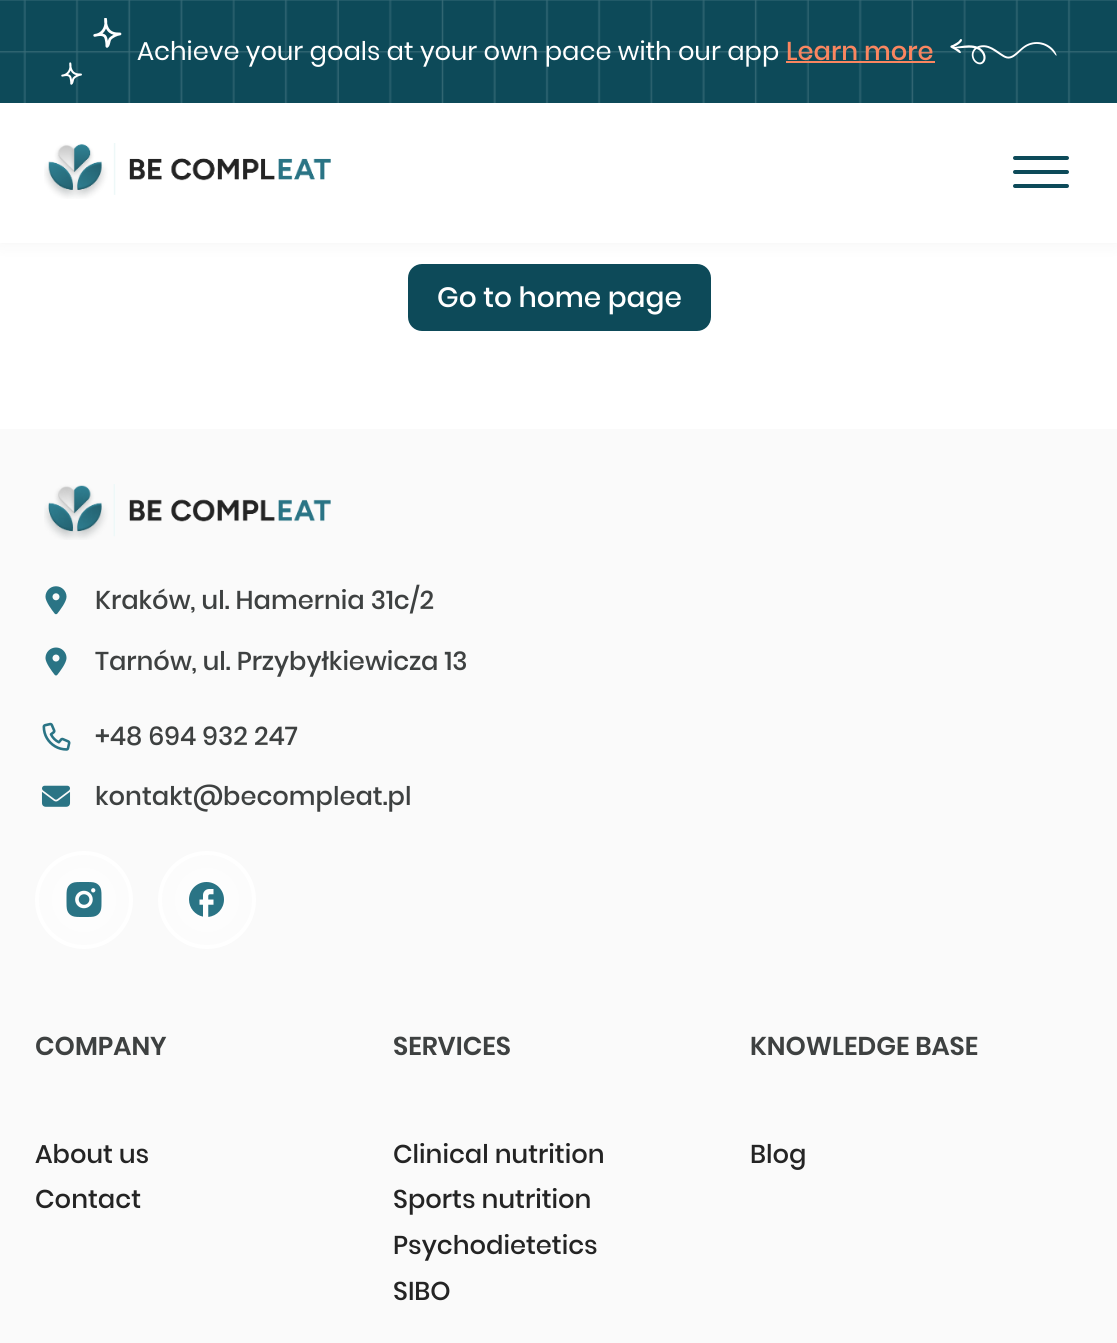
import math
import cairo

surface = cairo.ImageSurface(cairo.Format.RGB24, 1117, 1343)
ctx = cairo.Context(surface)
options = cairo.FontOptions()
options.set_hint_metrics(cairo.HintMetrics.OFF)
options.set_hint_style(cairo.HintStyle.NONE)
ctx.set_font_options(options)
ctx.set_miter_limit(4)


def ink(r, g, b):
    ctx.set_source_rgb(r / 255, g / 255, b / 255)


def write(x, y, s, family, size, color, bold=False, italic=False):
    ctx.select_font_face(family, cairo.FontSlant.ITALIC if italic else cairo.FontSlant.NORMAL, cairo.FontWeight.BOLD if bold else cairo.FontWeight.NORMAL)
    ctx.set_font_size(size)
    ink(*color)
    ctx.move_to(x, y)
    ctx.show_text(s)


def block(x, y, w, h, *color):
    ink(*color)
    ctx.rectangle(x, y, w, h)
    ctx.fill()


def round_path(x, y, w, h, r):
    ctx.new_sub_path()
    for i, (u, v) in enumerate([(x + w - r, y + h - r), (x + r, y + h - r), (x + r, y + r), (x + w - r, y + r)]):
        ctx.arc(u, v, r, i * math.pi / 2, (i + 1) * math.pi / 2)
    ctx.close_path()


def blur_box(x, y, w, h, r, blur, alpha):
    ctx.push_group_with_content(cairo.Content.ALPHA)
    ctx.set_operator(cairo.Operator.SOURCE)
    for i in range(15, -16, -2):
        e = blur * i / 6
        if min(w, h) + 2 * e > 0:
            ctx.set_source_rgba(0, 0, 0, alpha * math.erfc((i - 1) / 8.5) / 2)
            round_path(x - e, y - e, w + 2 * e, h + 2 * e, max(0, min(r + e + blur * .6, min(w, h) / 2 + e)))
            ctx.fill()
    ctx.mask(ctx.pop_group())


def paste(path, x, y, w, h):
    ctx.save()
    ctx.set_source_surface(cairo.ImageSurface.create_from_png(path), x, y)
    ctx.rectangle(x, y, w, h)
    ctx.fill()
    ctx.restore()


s1 = dict(family="Poppins", size=25.75, color=(255, 255, 255))
s2 = dict(family="Poppins Medium", size=25.75, color=(250, 134, 96))
s3 = dict(family="Poppins Medium", size=28, color=(255, 255, 255))
s4 = dict(family="Poppins Medium", size=25.75, color=(62, 65, 65))
s5 = dict(family="Poppins SemiBold", size=25.75, color=(62, 65, 65))
s6 = dict(family="Poppins Medium", size=25.75, color=(36, 36, 36))

ink(255, 255, 255)
ctx.paint()
ink(13, 74, 89)
round_path(409, 265, 301, 65, 13)
ctx.fill_preserve()
ctx.stroke()
ink(0, 0, 0)
blur_box(0, 0, 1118, 243, 0, 9, 0.05)
paste("pic1.png", 0, 0, 1117, 103)
paste("pic2.png", 61, 18, 61, 67)
write(137, 60, "Achieve your goals at your own pace with our app", **s1)
write(786, 60, "Learn more", **s2)
block(786, 61, 149, 2, 250, 134, 96)
paste("pic3.png", 950, 39, 107, 26)
block(0, 103, 1117, 140, 255, 255, 255)
paste("pic4.png", 44, 143, 287, 56)
ink(13, 74, 89)
round_path(1013, 170, 56, 4, 2)
ctx.fill()
round_path(1013, 156, 56, 4, 2)
ctx.fill()
round_path(1013, 184, 56, 4, 2)
ctx.fill()
write(437, 307, "Go to home page", **s3)
block(0, 429, 1117, 914, 250, 250, 250)
paste("pic5.png", 44, 484, 287, 56)
paste("pic6.png", 45, 586, 22, 29)
write(95, 609, "Kraków, ul. Hamernia 31c/2", **s4)
paste("pic7.png", 45, 647, 22, 29)
write(95, 670, "Tarnów, ul. Przybyłkiewicza 13", **s4)
paste("pic8.png", 42, 722, 29, 29)
write(95, 745, "+48 694 932 247", **s4)
paste("pic9.png", 41, 785, 30, 22)
write(95, 805, "kontakt@becompleat.pl", **s4)
ctx.save()
round_path(35, 851, 98, 98, 49)
ctx.clip()
gradient = cairo.RadialGradient(84, 900, 0, 84, 900, 64)
gradient.add_color_stop_rgba(0, 1, 1, 1, 1)
gradient.add_color_stop_rgba(1, 1, 1, 1, 0)
ctx.set_source(gradient)
ctx.rectangle(39, 854, 91, 91)
ctx.fill()
ctx.restore()
ctx.arc(84, 900, 47, 0, 2 * math.pi)
ink(255, 255, 255)
ctx.set_line_width(4)
ctx.stroke()
paste("pic10.png", 66, 882, 36, 35)
ctx.save()
round_path(158, 851, 98, 98, 49)
ctx.clip()
gradient = cairo.RadialGradient(207, 900, 0, 207, 900, 64)
gradient.add_color_stop_rgba(0, 1, 1, 1, 1)
gradient.add_color_stop_rgba(1, 1, 1, 1, 0)
ctx.set_source(gradient)
ctx.rectangle(161, 854, 91, 91)
ctx.fill()
ctx.restore()
ctx.arc(207, 900, 47, 0, 2 * math.pi)
ctx.stroke()
paste("pic11.png", 189, 882, 35, 35)
write(35, 1055, "COMPANY", **s5)
write(35, 1163, "About us", **s6)
write(35, 1208, "Contact", **s6)
write(393, 1055, "SERVICES", **s5)
write(393, 1163, "Clinical nutrition", **s6)
write(393, 1208, "Sports nutrition", **s6)
write(393, 1254, "Psychodietetics", **s6)
write(393, 1300, "SIBO", **s6)
write(750, 1055, "KNOWLEDGE BASE", **s5)
write(750, 1163, "Blog", **s6)
surface.write_to_png("screenshot.png")
